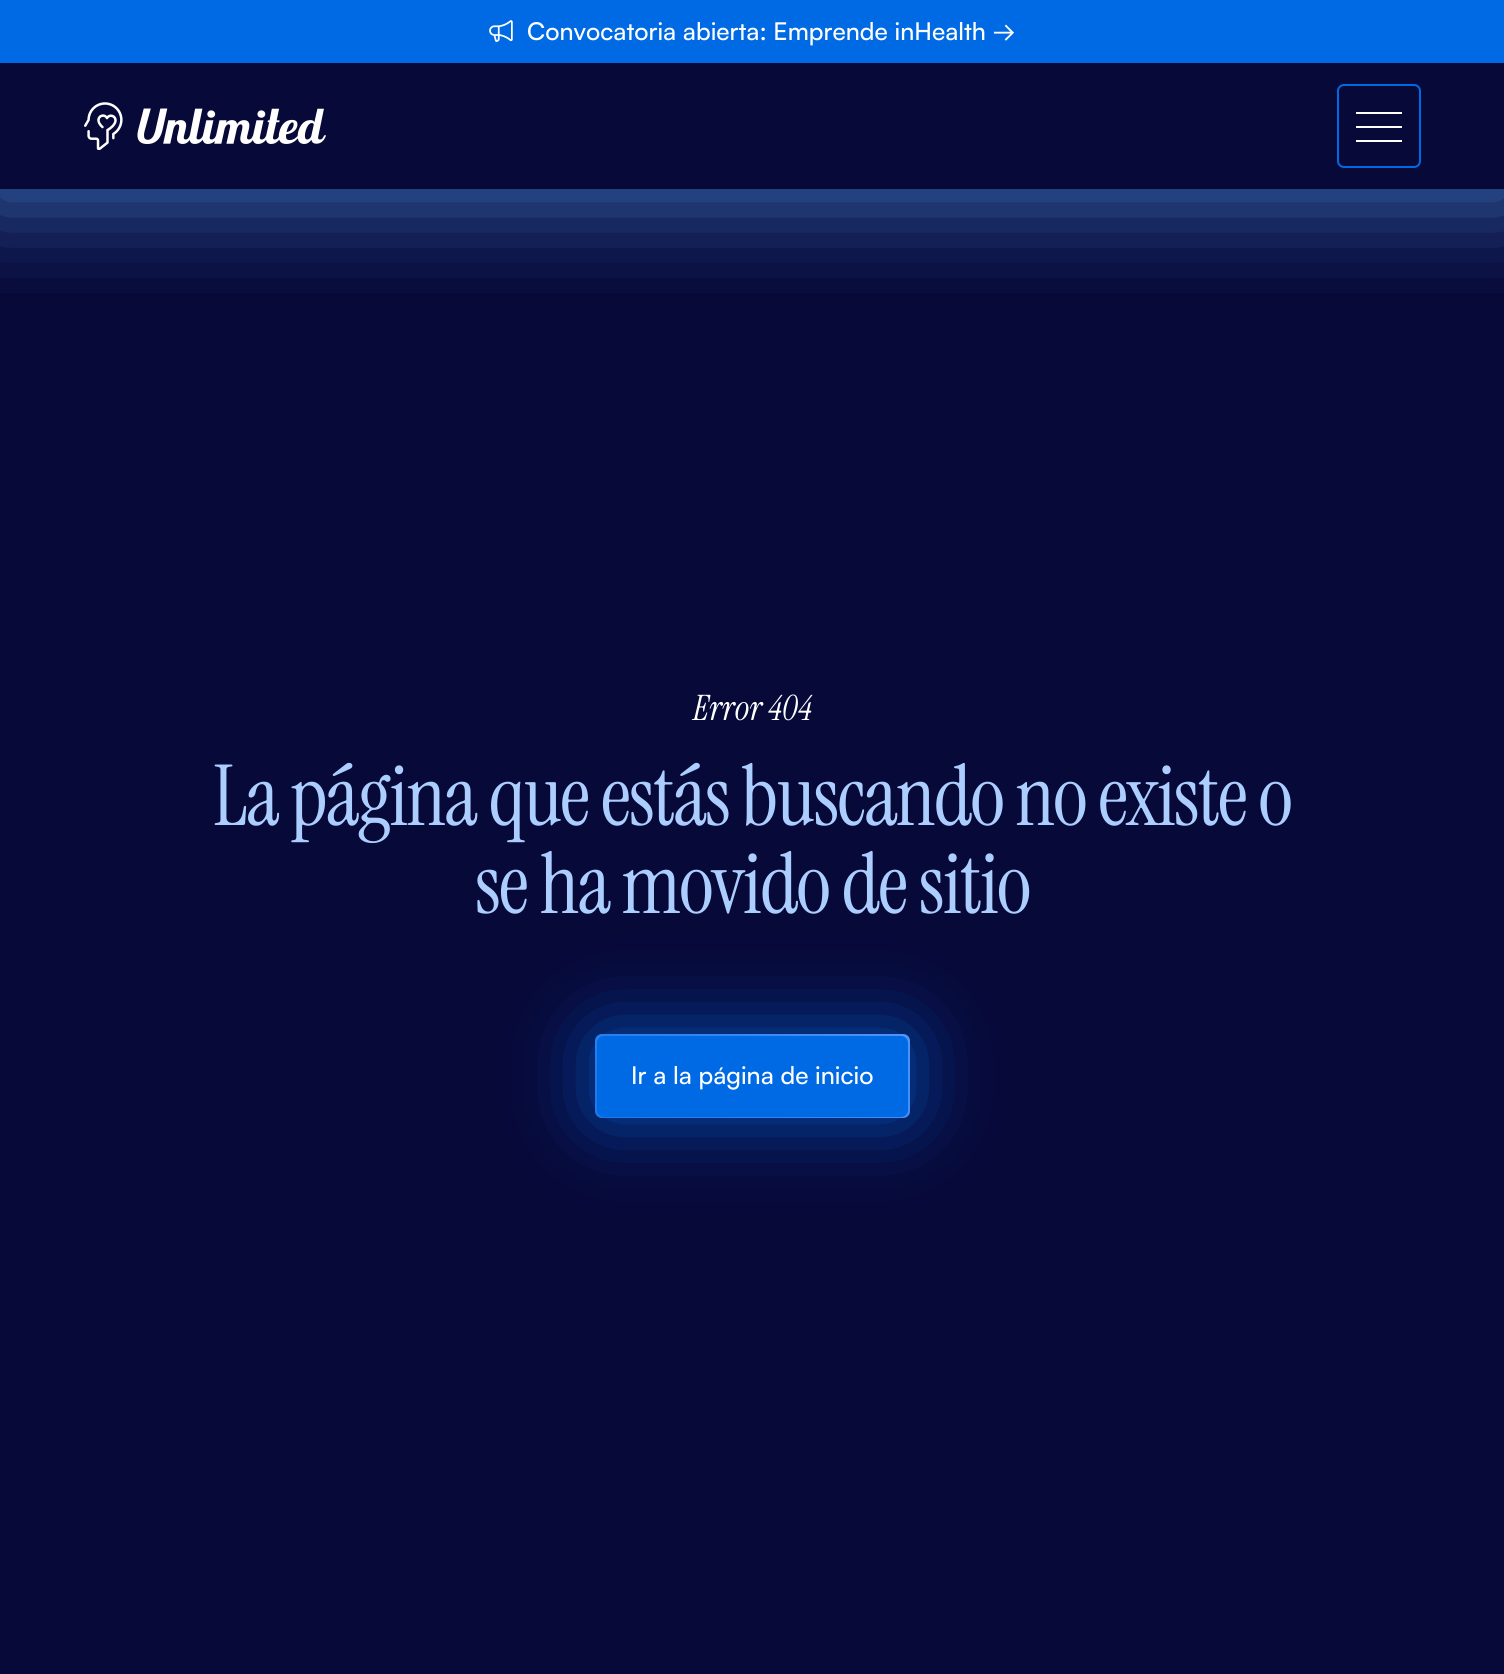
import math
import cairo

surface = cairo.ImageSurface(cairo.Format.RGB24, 1504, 1674)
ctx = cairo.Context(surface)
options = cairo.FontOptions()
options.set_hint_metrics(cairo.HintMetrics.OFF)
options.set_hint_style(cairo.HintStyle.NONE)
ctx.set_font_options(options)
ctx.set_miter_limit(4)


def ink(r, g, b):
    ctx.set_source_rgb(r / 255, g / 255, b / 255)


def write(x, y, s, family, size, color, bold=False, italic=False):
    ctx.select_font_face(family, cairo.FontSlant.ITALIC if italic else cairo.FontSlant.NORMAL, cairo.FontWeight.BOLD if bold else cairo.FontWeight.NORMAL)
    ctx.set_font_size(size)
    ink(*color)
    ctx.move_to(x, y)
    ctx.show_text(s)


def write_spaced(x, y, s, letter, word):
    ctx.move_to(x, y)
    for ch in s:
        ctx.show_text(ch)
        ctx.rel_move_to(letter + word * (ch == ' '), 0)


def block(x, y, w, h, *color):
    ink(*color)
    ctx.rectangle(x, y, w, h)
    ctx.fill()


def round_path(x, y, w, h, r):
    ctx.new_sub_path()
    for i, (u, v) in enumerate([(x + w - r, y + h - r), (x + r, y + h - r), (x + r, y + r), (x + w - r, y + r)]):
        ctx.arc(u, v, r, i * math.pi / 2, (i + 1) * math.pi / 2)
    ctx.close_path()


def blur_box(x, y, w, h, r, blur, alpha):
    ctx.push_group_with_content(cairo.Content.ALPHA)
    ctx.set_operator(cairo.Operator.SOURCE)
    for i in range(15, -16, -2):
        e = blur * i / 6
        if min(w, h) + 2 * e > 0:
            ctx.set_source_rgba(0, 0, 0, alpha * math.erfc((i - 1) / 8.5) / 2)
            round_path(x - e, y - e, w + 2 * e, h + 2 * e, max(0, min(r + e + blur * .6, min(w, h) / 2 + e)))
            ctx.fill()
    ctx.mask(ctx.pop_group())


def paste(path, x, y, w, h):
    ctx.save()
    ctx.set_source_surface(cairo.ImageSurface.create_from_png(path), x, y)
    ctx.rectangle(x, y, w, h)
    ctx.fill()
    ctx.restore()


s1 = dict(family="Satoshi Medium", size=24.5, color=(255, 255, 255))
s2 = dict(family="Instrument Serif", size=35, color=(255, 255, 255), italic=True)

ink(7, 9, 57)
ctx.paint()
ctx.save()
ctx.rectangle(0, 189, 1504, 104)
ctx.clip()
ink(85, 157, 242)
blur_box(-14, -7, 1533, 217, 0, 45.5, 0.6)
ctx.restore()
block(0, 0, 1504, 63, 0, 106, 229)
paste("pic1.png", 489, 20, 24, 22)
write(527, 40, "Convocatoria abierta: Emprende inHealth →", **s1)
paste("pic2.png", 84, 102, 243, 48)
round_path(1338, 85, 82, 82, 6)
ink(0, 106, 229)
ctx.stroke()
block(1356, 112, 46, 2, 255, 255, 255)
block(1356, 126, 46, 2, 255, 255, 255)
block(1356, 140, 46, 2, 255, 255, 255)
write(693, 720, "Error 404", **s2)
ctx.select_font_face("Instrument Serif")
ctx.set_font_size(84)
ink(171, 206, 255)
write_spaced(213, 825, "La página que estás buscando no existe o", -1.75, 0)
write_spaced(475, 913, "se ha movido de sitio", -1.75, 0)
ink(0, 108, 236)
blur_box(595, 1034, 315, 84, 7, 38.5, 0.7)
ink(0, 106, 229)
round_path(595, 1034, 315, 84, 7)
ctx.fill()
gradient = cairo.LinearGradient(662, 1178, 843, 975)
gradient.add_color_stop_rgba(0, 0.427, 0.639, 1, 0.25)
gradient.add_color_stop_rgba(1, 0.447, 0.651, 1, 0.7)
ctx.set_source(gradient)
round_path(595, 1034, 315, 84, 7)
ctx.fill()
ink(0, 106, 229)
round_path(597, 1036, 311, 81, 7)
ctx.fill()
write(631, 1084, "Ir a la página de inicio", **s1)
surface.write_to_png("screenshot.png")
